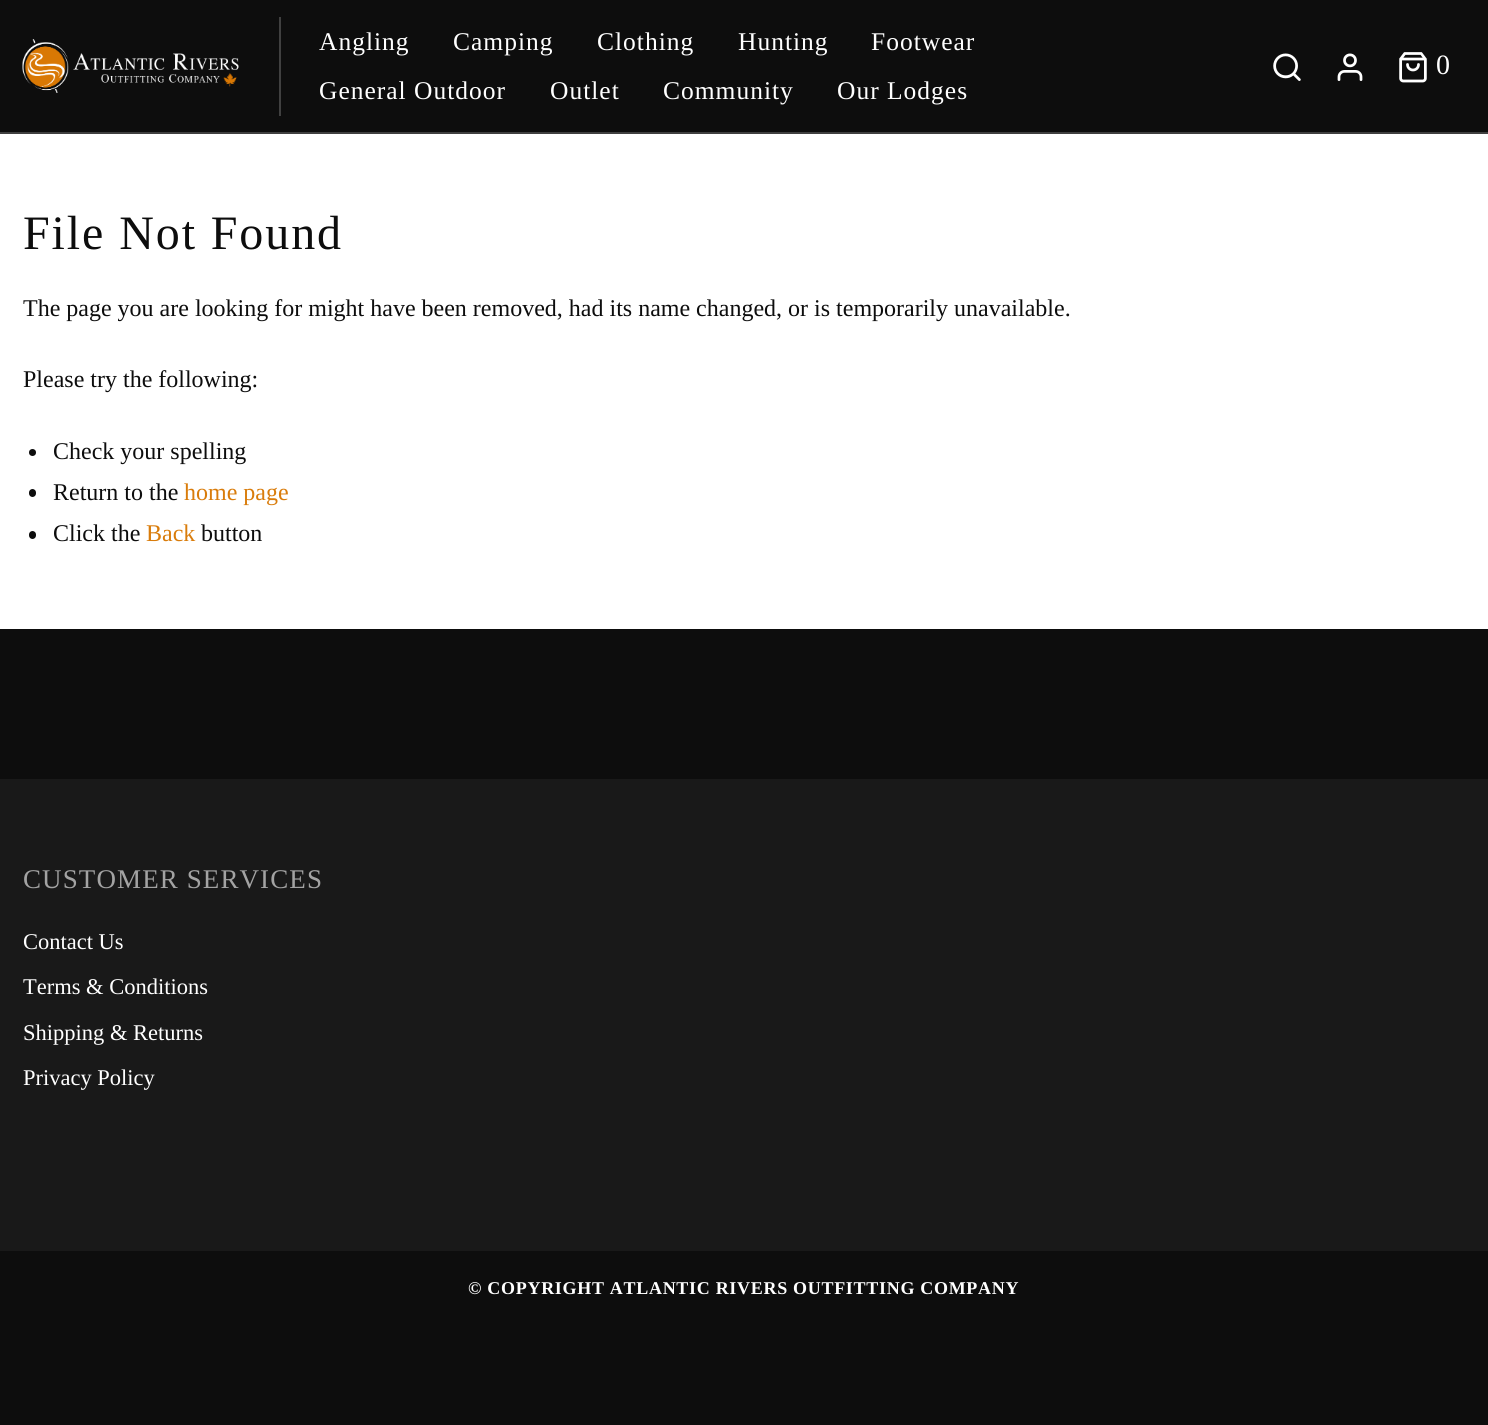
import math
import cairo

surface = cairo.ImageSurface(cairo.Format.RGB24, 1488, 1425)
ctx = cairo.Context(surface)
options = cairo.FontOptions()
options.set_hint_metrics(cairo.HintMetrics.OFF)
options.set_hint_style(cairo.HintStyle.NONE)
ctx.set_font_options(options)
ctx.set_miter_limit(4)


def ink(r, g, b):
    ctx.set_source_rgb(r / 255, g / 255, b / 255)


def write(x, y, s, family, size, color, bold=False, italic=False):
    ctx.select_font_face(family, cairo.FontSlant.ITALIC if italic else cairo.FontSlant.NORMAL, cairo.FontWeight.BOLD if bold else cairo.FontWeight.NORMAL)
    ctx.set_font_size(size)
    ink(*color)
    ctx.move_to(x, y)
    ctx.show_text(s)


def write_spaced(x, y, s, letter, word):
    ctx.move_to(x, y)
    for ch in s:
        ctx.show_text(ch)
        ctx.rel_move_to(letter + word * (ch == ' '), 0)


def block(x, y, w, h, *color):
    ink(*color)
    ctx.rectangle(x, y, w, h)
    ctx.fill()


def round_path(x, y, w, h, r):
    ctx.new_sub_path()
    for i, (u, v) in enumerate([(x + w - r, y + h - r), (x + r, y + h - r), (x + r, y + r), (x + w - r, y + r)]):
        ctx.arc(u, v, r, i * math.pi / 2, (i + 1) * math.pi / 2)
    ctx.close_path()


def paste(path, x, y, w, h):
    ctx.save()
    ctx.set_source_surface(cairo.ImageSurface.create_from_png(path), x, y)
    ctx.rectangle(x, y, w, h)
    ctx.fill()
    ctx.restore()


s1 = dict(family="Liberation Serif", size=24, color=(13, 13, 13))
s2 = dict(family="Liberation Serif", size=24, color=(217, 124, 11))
s3 = dict(family="Liberation Serif", size=22.5, color=(255, 255, 255))

ink(13, 13, 13)
ctx.paint()
block(0, 134, 1488, 495, 255, 255, 255)
block(0, 132, 1488, 2, 64, 64, 64)
paste("pic1.png", 22, 39, 217, 54)
block(279, 17, 2, 99, 64, 64, 64)
ctx.select_font_face("Liberation Serif")
ctx.set_font_size(25.5)
ink(255, 255, 255)
write_spaced(319, 50, "Angling", 1, 0)
write_spaced(453, 50, "Camping", 1, 0)
write_spaced(597, 50, "Clothing", 1, 0)
write_spaced(738, 50, "Hunting", 1, 0)
write_spaced(871, 50, "Footwear", 1, 0)
write_spaced(319, 99, "General Outdoor", 1, 0)
write_spaced(550, 99, "Outlet", 1, 0)
write_spaced(663, 99, "Community", 1, 0)
write_spaced(837, 99, "Our Lodges", 1, 0)
paste("pic2.png", 1273, 53, 28, 28)
paste("pic3.png", 1337, 53, 26, 28)
paste("pic4.png", 1399, 52, 28, 31)
ctx.set_font_size(28)
write_spaced(1436, 74, "0", 1, 0)
ctx.set_font_size(48)
ink(13, 13, 13)
write_spaced(23, 249, "File Not Found", 1.9, 0)
write(23, 316, "The page you are looking for might have been removed, had its name changed, or is temporarily unavailable.", **s1)
write(23, 387, "Please try the following:", **s1)
ctx.new_path()
ctx.arc(32.5, 452.5, 3.5, 0, 2 * math.pi)
ctx.fill()
write(53, 459, "Check your spelling", **s1)
round_path(29, 489, 7, 8, 3.5)
ctx.fill()
write(53, 500, "Return to the", **s1)
write(184, 500, "home page", **s2)
ink(13, 13, 13)
round_path(29, 531, 7, 8, 3.5)
ctx.fill()
write(53, 541, "Click the", **s1)
write(146, 541, "Back", **s2)
write(201, 541, "button", **s1)
block(0, 779, 1488, 472, 25, 25, 25)
ctx.set_font_size(27)
ink(163, 163, 163)
write_spaced(23, 888, "CUSTOMER SERVICES", 1.1, 0)
write(23, 949, "Contact Us", **s3)
write(23, 994, "Terms & Conditions", **s3)
write(23, 1040, "Shipping & Returns", **s3)
write(23, 1085, "Privacy Policy", **s3)
ctx.select_font_face("Liberation Serif", cairo.FontSlant.NORMAL, cairo.FontWeight.BOLD)
ctx.set_font_size(18)
write_spaced(468, 1294, "© COPYRIGHT ATLANTIC RIVERS OUTFITTING COMPANY", 0.7, 0)
surface.write_to_png("screenshot.png")
